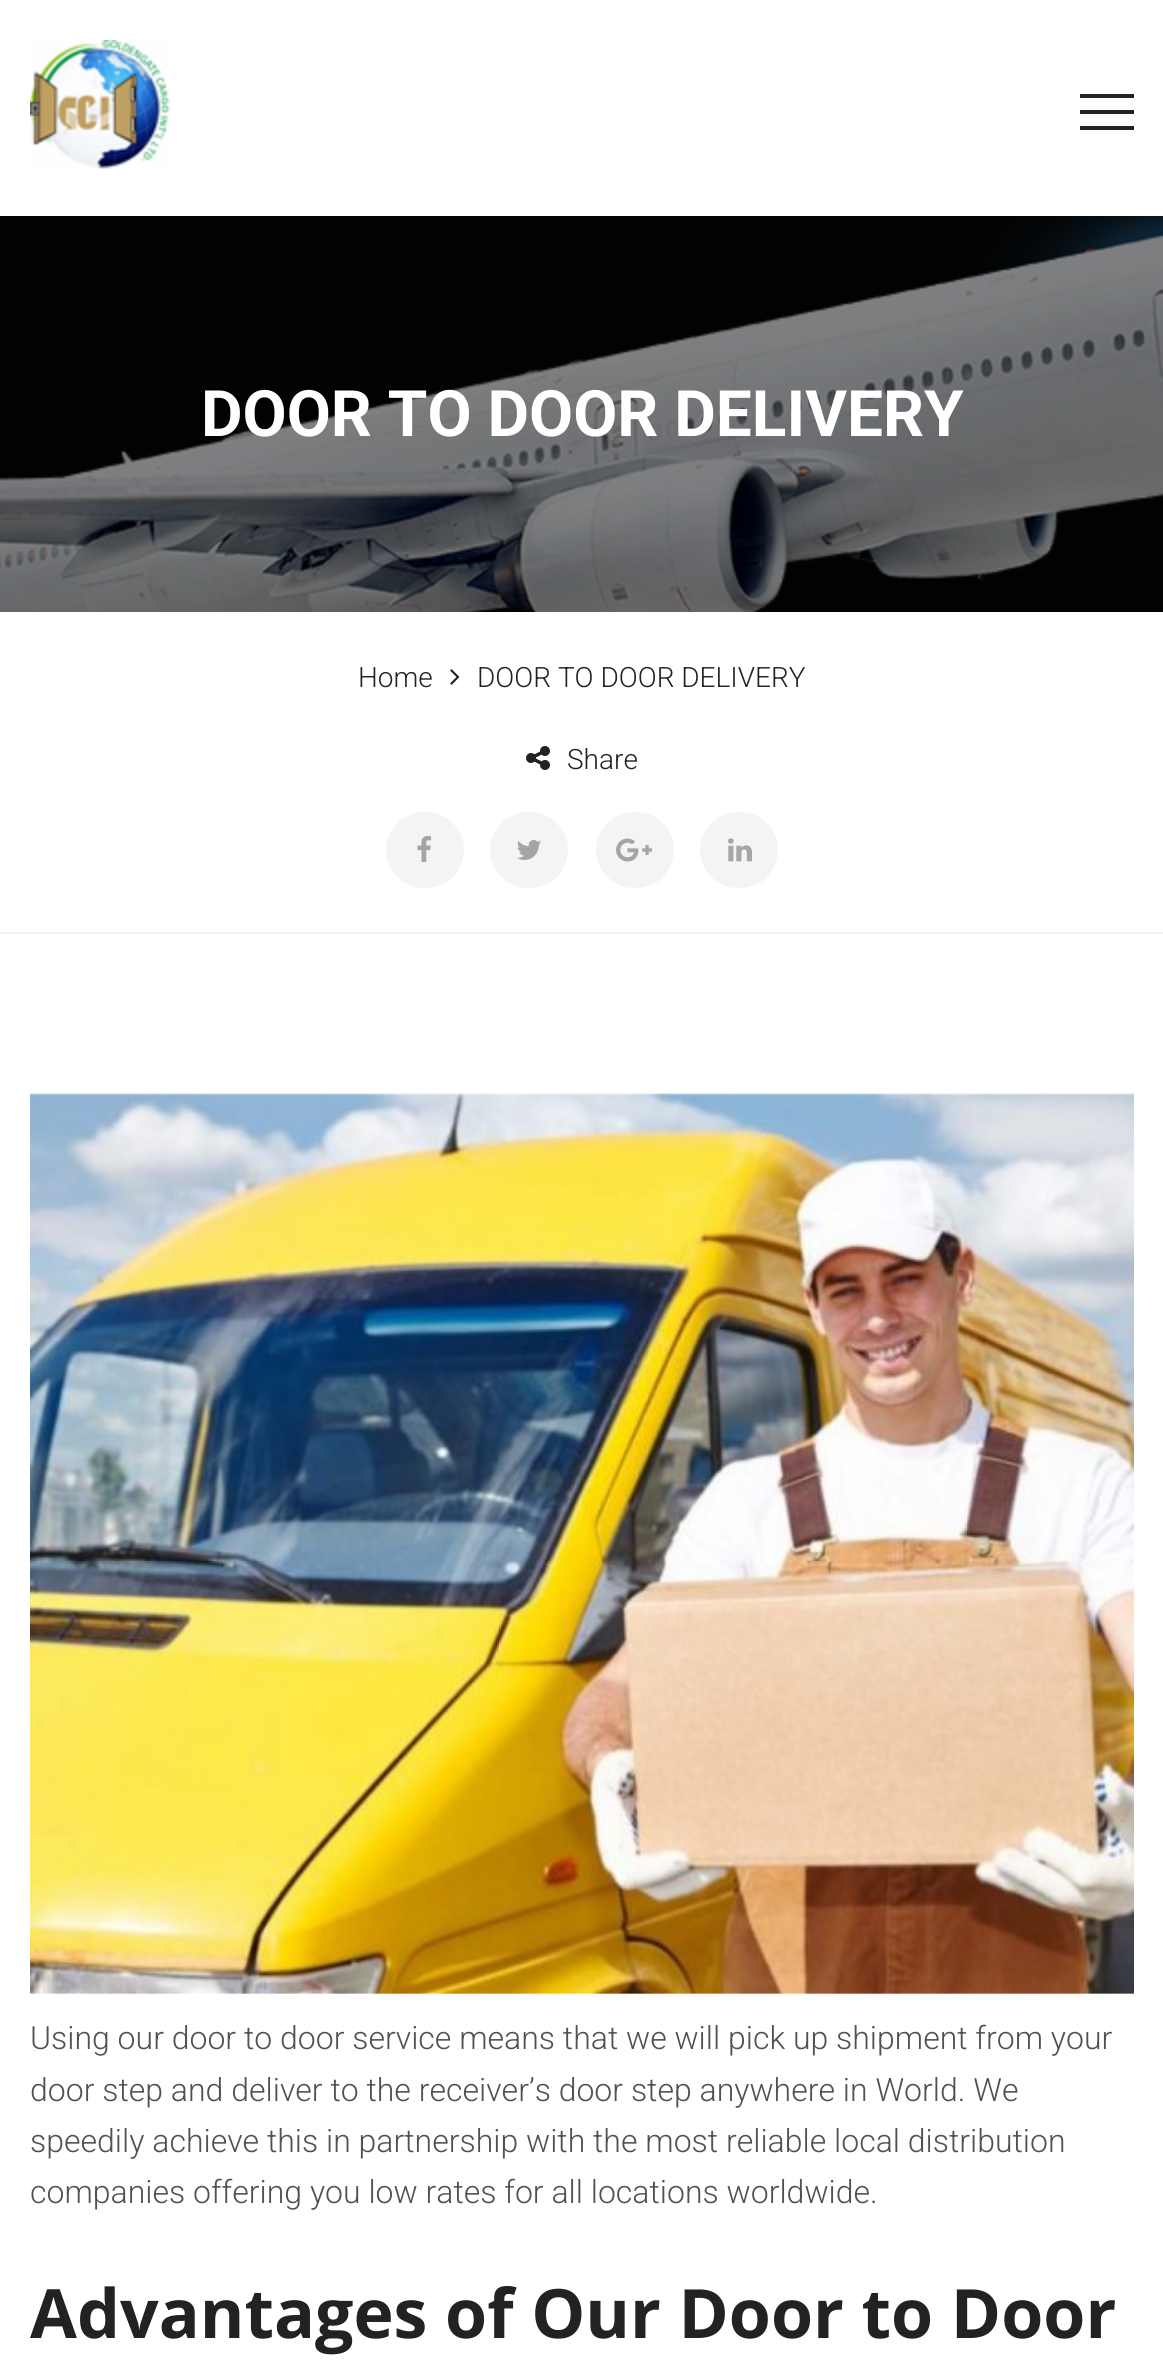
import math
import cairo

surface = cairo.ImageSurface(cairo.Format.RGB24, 1163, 2364)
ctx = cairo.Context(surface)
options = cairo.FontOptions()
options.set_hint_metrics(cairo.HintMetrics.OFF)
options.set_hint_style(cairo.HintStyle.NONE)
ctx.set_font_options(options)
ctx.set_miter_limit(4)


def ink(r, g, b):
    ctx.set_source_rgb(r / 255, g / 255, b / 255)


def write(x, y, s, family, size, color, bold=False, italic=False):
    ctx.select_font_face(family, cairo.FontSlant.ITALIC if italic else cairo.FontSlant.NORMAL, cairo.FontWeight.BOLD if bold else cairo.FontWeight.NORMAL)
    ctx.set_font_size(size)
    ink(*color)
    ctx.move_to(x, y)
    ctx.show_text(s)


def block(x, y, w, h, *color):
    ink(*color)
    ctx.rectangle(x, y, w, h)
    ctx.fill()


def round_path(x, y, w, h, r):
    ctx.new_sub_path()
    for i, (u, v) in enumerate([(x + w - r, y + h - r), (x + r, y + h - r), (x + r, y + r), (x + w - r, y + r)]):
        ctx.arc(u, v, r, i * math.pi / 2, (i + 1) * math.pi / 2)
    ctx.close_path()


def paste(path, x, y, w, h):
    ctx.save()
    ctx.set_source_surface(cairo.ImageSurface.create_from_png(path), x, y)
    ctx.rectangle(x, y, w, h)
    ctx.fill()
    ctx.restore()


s1 = dict(family="Roboto", size=64, color=(255, 255, 255), bold=True)
s2 = dict(family="Roboto Light", size=28, color=(34, 34, 34))
s3 = dict(family="Roboto Light", size=32, color=(81, 81, 81))
s4 = dict(family="Open Sans", size=68, color=(34, 34, 34), bold=True)

ink(255, 255, 255)
ctx.paint()
paste("pic1.png", 30, 40, 141, 129)
block(1080, 110, 54, 4, 34, 34, 34)
block(1080, 94, 54, 4, 34, 34, 34)
block(1080, 126, 54, 4, 34, 34, 34)
block(0, 216, 1163, 396, 2, 2, 2)
paste("pic2.png", 0, 216, 1163, 396)
write(201, 436, "DOOR TO DOOR DELIVERY", **s1)
block(0, 932, 1163, 2, 244, 244, 244)
write(358, 687, "Home", **s2)
paste("pic3.png", 450, 669, 10, 16)
write(477, 687, "DOOR TO DOOR DELIVERY", **s2)
paste("pic4.png", 526, 746, 24, 24)
write(567, 769, "Share", **s2)
ink(244, 244, 244)
round_path(386, 812, 78, 76, 38)
ctx.fill()
paste("pic5.png", 417, 836, 14, 26)
round_path(490, 812, 78, 76, 38)
ctx.fill()
paste("pic6.png", 517, 840, 24, 20)
round_path(596, 812, 78, 76, 38)
ctx.fill()
paste("pic7.png", 616, 838, 36, 24)
round_path(700, 812, 78, 76, 38)
ctx.fill()
paste("pic8.png", 728, 838, 24, 24)
paste("pic9.png", 30, 1093, 1104, 901)
write(30, 2049, "Using our door to door service means that we will pick up shipment from your", **s3)
write(30, 2101, "door step and deliver to the receiver’s door step anywhere in World. We", **s3)
write(30, 2152, "speedily achieve this in partnership with the most reliable local distribution", **s3)
write(30, 2203, "companies offering you low rates for all locations worldwide.", **s3)
write(30, 2338, "Advantages of Our Door to Door", **s4)
surface.write_to_png("screenshot.png")
